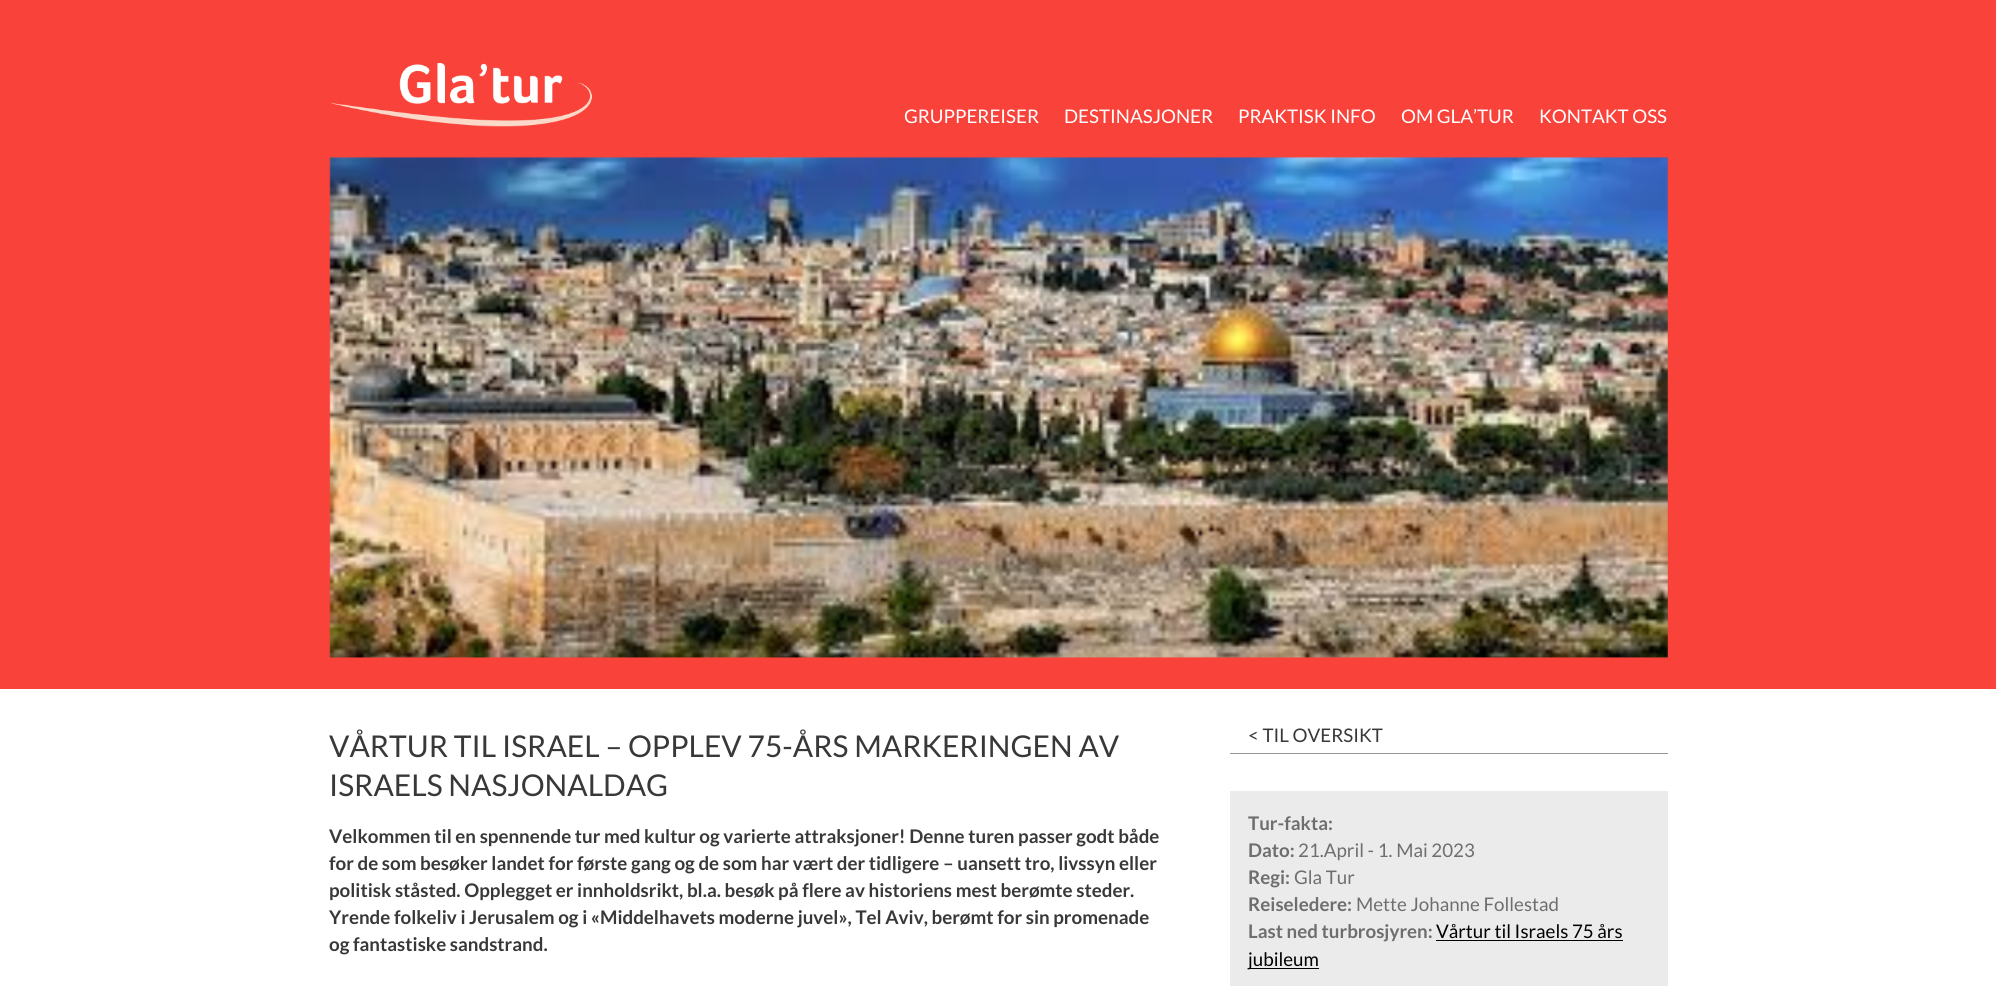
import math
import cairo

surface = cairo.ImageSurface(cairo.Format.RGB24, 1996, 986)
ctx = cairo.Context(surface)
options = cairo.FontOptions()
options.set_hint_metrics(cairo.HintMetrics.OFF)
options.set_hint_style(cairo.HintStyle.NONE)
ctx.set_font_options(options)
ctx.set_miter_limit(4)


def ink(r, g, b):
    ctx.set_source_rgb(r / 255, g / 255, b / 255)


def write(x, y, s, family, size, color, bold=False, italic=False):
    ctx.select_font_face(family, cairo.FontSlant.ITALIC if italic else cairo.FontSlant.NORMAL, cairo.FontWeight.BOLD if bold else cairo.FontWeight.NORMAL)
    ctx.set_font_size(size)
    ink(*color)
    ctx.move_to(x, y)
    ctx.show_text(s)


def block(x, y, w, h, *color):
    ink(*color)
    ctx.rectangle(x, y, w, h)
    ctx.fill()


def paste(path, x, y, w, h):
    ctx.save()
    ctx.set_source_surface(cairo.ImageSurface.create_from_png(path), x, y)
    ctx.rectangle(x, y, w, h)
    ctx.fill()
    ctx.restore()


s1 = dict(family="Lato", size=18.75, color=(255, 255, 255))
s2 = dict(family="Lato", size=30, color=(56, 56, 58))
s3 = dict(family="Lato", size=18.75, color=(56, 56, 58), bold=True)
s4 = dict(family="Lato", size=18.75, color=(56, 56, 58))
s5 = dict(family="Lato", size=18.75, color=(110, 110, 110), bold=True)
s6 = dict(family="Lato", size=18.75, color=(110, 110, 110))
s7 = dict(family="Lato", size=18.75, color=(0, 0, 0))

ink(255, 255, 255)
ctx.paint()
block(0, 0, 1996, 689, 249, 66, 58)
paste("pic1.png", 330, 63, 262, 64)
write(904, 123, "GRUPPEREISER", **s1)
write(1064, 123, "DESTINASJONER", **s1)
write(1238, 123, "PRAKTISK INFO", **s1)
write(1401, 123, "OM GLA’TUR", **s1)
write(1539, 123, "KONTAKT OSS", **s1)
paste("pic2.png", 329, 157, 1339, 501)
write(329, 757, "VÅRTUR TIL ISRAEL – OPPLEV 75-ÅRS MARKERINGEN AV", **s2)
write(329, 796, "ISRAELS NASJONALDAG", **s2)
write(329, 843, "Velkommen til en spennende tur med kultur og varierte attraksjoner! Denne turen passer godt både", **s3)
write(329, 870, "for de som besøker landet for første gang og de som har vært der tidligere – uansett tro, livssyn eller", **s3)
write(329, 897, "politisk ståsted. Opplegget er innholdsrikt, bl.a. besøk på flere av historiens mest berømte steder.", **s3)
write(329, 924, "Yrende folkeliv i Jerusalem og i «Middelhavets moderne juvel», Tel Aviv, berømt for sin promenade", **s3)
write(329, 951, "og fantastiske sandstrand.", **s3)
block(1230, 753, 438, 1, 148, 148, 148)
write(1248, 742, "< TIL OVERSIKT", **s4)
block(1230, 791, 438, 195, 235, 235, 235)
write(1248, 830, "Tur-fakta:", **s5)
write(1248, 857, "Dato:", **s5)
write(1298, 857, "21.April - 1. Mai 2023", **s6)
write(1248, 884, "Regi:", **s5)
write(1294, 884, "Gla Tur", **s6)
write(1248, 911, "Reiseledere:", **s5)
write(1356, 911, "Mette Johanne Follestad", **s6)
write(1248, 938, "Last ned turbrosjyren:", **s5)
write(1436, 938, "Vårtur til Israels 75 års", **s7)
block(1436, 940, 187, 1, 0, 0, 0)
block(1249, 968, 70, 1, 0, 0, 0)
write(1248, 966, "jubileum", **s7)
surface.write_to_png("screenshot.png")
